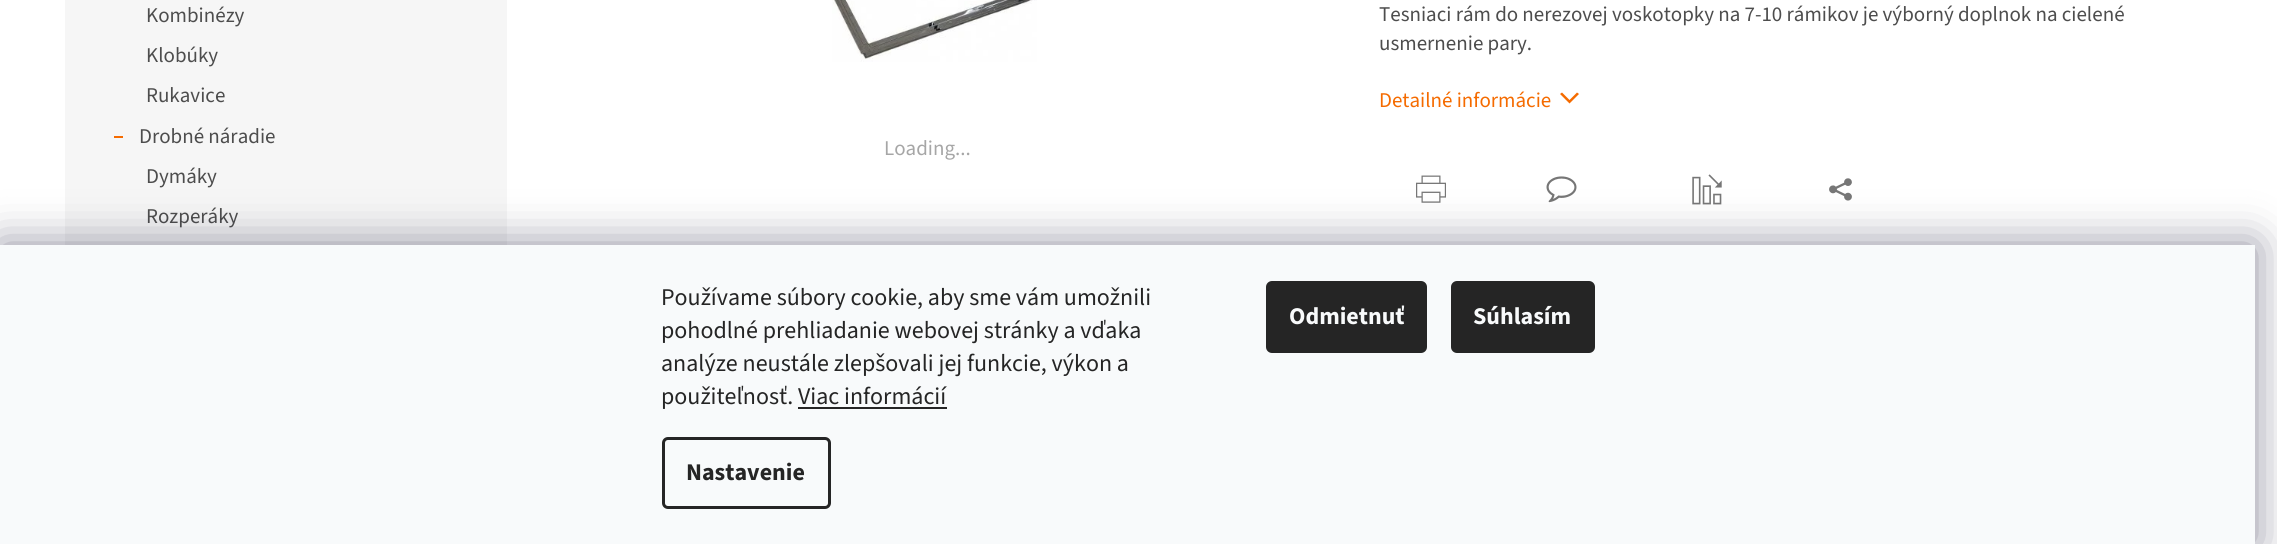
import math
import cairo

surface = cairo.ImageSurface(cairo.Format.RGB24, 2277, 544)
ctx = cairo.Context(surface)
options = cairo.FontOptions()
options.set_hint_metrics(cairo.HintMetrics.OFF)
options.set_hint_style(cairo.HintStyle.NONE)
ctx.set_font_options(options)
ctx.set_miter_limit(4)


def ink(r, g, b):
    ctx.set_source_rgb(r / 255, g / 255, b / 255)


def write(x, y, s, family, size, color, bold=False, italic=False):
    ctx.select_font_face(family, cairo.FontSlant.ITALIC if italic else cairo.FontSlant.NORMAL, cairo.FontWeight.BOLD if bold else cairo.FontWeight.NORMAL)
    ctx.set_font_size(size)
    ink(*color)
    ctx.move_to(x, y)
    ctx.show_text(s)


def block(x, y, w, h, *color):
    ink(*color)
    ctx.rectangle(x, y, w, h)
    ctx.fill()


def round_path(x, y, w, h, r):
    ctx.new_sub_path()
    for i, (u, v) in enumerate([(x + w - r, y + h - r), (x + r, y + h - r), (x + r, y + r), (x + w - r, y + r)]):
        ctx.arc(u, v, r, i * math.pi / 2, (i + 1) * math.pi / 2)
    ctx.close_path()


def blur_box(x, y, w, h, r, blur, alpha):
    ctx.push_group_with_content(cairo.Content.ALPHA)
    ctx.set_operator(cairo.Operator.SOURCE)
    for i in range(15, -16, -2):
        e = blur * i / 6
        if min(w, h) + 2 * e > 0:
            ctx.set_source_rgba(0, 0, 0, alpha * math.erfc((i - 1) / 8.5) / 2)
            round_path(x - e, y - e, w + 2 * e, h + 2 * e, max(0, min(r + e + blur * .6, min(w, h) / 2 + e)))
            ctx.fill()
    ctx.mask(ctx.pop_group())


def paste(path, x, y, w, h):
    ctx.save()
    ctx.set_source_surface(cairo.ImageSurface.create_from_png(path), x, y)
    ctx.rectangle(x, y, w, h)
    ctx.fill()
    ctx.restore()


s1 = dict(family="Source Sans 3", size=21, color=(77, 77, 77))
s2 = dict(family="Source Sans 3", size=21, color=(245, 107, 0))
s3 = dict(family="Source Sans 3", size=21, color=(166, 166, 166))
s4 = dict(family="Source Sans 3", size=24, color=(37, 37, 37))
s5 = dict(family="Source Sans 3", size=24, color=(37, 37, 37), bold=True)
s6 = dict(family="Source Sans 3", size=24, color=(248, 250, 251), bold=True)

ink(255, 255, 255)
ctx.paint()
block(65, 0, 442, 245, 246, 246, 246)
write(146, 22, "Kombinézy", **s1)
write(146, 62, "Klobúky", **s1)
write(146, 102, "Rukavice", **s1)
block(114, 136, 9, 2, 245, 107, 0)
write(139, 143, "Drobné náradie", **s1)
write(146, 183, "Dymáky", **s1)
write(146, 223, "Rozperáky", **s1)
write(1379, 21, "Tesniaci rám do nerezovej voskotopky na 7-10 rámikov je výborný doplnok na cielené", **s1)
write(1379, 50, "usmernenie pary.", **s1)
write(1379, 107, "Detailné informácie", **s2)
ctx.new_path()
ctx.move_to(1560, 94)
ctx.line_to(1562, 92.5)
ctx.line_to(1569.5, 100)
ctx.line_to(1577, 92.5)
ctx.line_to(1579, 94)
ctx.line_to(1569.5, 103.5)
ctx.close_path()
ctx.fill()
paste("pic1.png", 1416, 175, 30, 28)
paste("pic2.png", 1546, 176, 31, 27)
paste("pic3.png", 1692, 174, 30, 31)
paste("pic4.png", 1829, 178, 23, 23)
paste("pic5.png", 832, 0, 205, 62)
write(884, 155, "Loading...", **s3)
ink(27, 25, 57)
blur_box(0, 245, 2255, 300, 0, 22.5, 0.5)
block(0, 245, 2255, 299, 248, 250, 251)
write(661, 305, "Používame súbory cookie, aby sme vám umožnili", **s4)
write(661, 338, "pohodlné prehliadanie webovej stránky a vďaka", **s4)
write(661, 371, "analýze neustále zlepšovali jej funkcie, výkon a", **s4)
write(661, 404, "použiteľnosť. Viac informácií", **s4)
block(798, 407, 149, 2, 37, 37, 37)
round_path(663.5, 438.5, 166, 69, 4.5)
ctx.set_line_width(3)
ctx.stroke()
write(686, 480, "Nastavenie", **s5)
round_path(1266, 281, 161, 72, 6)
ctx.fill()
write(1289, 324, "Odmietnuť", **s6)
ink(37, 37, 37)
round_path(1451, 281, 144, 72, 6)
ctx.fill()
write(1473, 324, "Súhlasím", **s6)
surface.write_to_png("screenshot.png")
